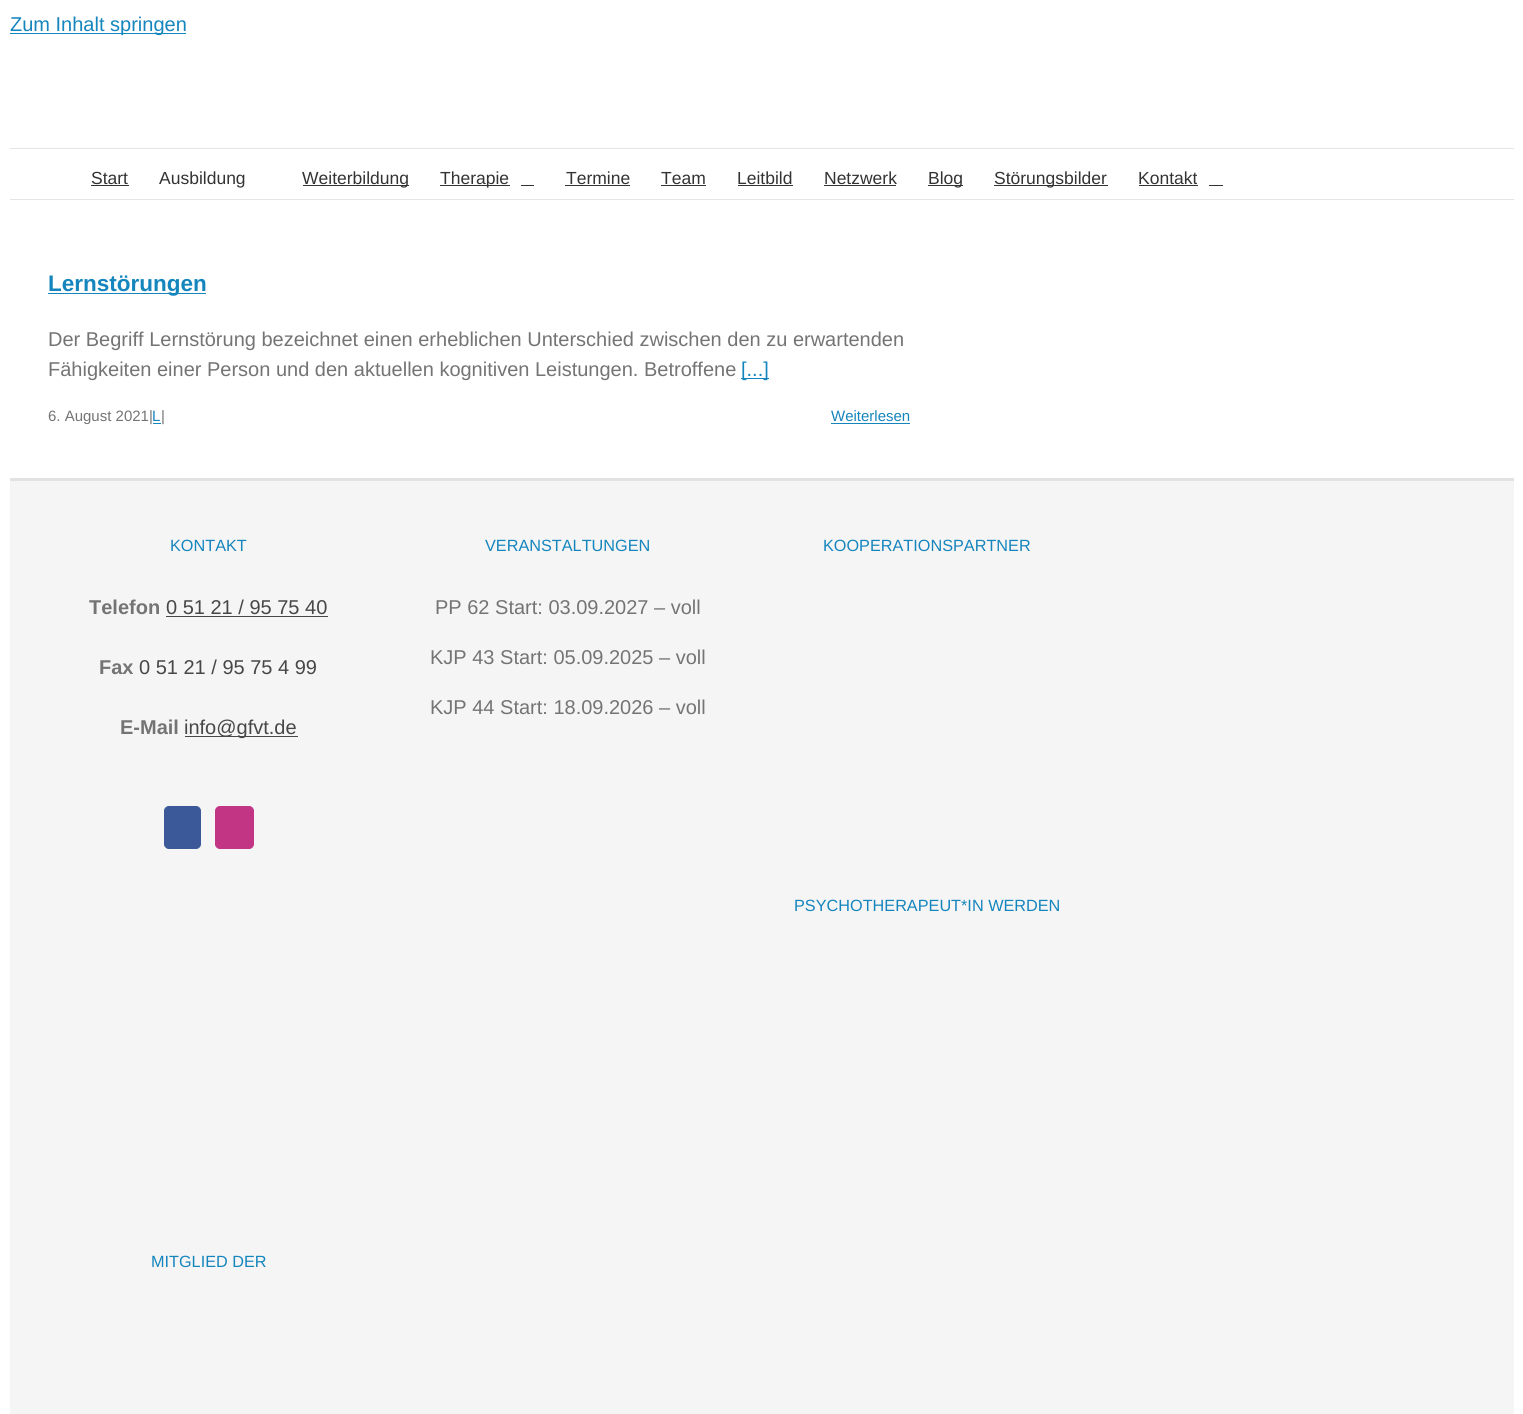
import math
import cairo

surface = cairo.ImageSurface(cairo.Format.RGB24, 1523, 1414)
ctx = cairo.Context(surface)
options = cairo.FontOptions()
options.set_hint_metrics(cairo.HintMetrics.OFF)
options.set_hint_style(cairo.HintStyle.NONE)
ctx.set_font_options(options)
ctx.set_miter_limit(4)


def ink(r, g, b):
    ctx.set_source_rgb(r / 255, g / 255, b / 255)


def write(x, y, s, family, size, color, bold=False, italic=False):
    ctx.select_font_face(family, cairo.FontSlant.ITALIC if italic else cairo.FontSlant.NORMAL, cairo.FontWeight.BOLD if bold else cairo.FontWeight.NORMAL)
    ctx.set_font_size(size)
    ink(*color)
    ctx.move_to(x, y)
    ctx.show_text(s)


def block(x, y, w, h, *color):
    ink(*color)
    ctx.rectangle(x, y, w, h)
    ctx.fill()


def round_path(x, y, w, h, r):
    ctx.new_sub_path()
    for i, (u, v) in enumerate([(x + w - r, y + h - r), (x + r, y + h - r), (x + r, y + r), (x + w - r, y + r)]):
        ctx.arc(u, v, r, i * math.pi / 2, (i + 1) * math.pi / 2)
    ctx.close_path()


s1 = dict(family="Liberation Sans", size=20, color=(21, 133, 189))
s2 = dict(family="Liberation Sans", size=17.5, color=(51, 51, 51))
s3 = dict(family="Liberation Sans", size=22.5, color=(21, 133, 189), bold=True)
s4 = dict(family="Liberation Sans", size=20, color=(116, 116, 116))
s5 = dict(family="Liberation Sans", size=15, color=(116, 116, 116))
s6 = dict(family="Liberation Sans", size=15, color=(21, 133, 189))
s7 = dict(family="Liberation Sans", size=16.25, color=(21, 133, 189))
s8 = dict(family="Liberation Sans", size=20, color=(116, 116, 116), bold=True)
s9 = dict(family="Liberation Sans", size=20, color=(71, 71, 71))

ink(255, 255, 255)
ctx.paint()
block(10, 33, 176, 1, 21, 133, 189)
write(10, 31, "Zum Inhalt springen", **s1)
block(10, 148, 1504, 1, 229, 229, 229)
block(10, 199, 1504, 1, 229, 229, 229)
write(91, 184, "Start", **s2)
block(91, 185, 38, 1, 51, 51, 51)
write(159, 184, "Ausbildung", **s2)
block(303, 185, 106, 1, 51, 51, 51)
write(302, 184, "Weiterbildung", **s2)
block(440, 185, 70, 1, 51, 51, 51)
write(440, 184, "Therapie", **s2)
block(521, 185, 13, 1, 51, 51, 51)
write(566, 184, "Termine", **s2)
block(565, 185, 65, 1, 51, 51, 51)
write(661, 184, "Team", **s2)
block(661, 185, 45, 1, 51, 51, 51)
write(737, 184, "Leitbild", **s2)
block(738, 185, 55, 1, 51, 51, 51)
write(824, 184, "Netzwerk", **s2)
block(824, 185, 72, 1, 51, 51, 51)
block(928, 185, 35, 1, 51, 51, 51)
write(928, 184, "Blog", **s2)
block(994, 185, 114, 1, 51, 51, 51)
write(994, 184, "Störungsbilder", **s2)
write(1138, 184, "Kontakt", **s2)
block(1139, 185, 59, 1, 51, 51, 51)
block(1209, 185, 14, 1, 51, 51, 51)
block(48, 293, 158, 1, 21, 133, 189)
write(48, 291, "Lernstörungen", **s3)
write(48, 346, "Der Begriff Lernstörung bezeichnet einen erheblichen Unterschied zwischen den zu erwartenden", **s4)
write(48, 376, "Fähigkeiten einer Person und den aktuellen kognitiven Leistungen. Betroffene", **s4)
block(741, 378, 28, 1, 21, 133, 189)
write(741, 376, "[...]", **s1)
write(48, 421, "6. August 2021|", **s5)
write(152, 421, "L", **s6)
block(153, 423, 8, 1, 21, 133, 189)
write(161, 421, "|", **s5)
write(831, 421, "Weiterlesen", **s6)
block(831, 423, 79, 1, 21, 133, 189)
block(10, 481, 1504, 933, 245, 245, 245)
block(10, 478, 1504, 3, 226, 226, 226)
write(170, 551, "KONTAKT", **s7)
write(89, 614, "Telefon", **s8)
write(166, 614, "0 51 21 / 95 75 40", **s9)
block(166, 616, 162, 1, 71, 71, 71)
write(99, 674, "Fax", **s8)
write(139, 674, "0 51 21 / 95 75 4 99", **s9)
write(120, 734, "E-Mail", **s8)
block(185, 736, 113, 1, 71, 71, 71)
write(184, 734, "info@gfvt.de", **s9)
ink(59, 89, 152)
round_path(164.5, 806.5, 36, 42, 4.5)
ctx.fill_preserve()
ctx.set_line_width(1)
ctx.stroke()
ink(193, 53, 132)
round_path(215.5, 806.5, 38, 42, 4.5)
ctx.fill_preserve()
ctx.stroke()
write(485, 551, "VERANSTALTUNGEN", **s7)
write(435, 614, "PP 62 Start: 03.09.2027 – voll", **s4)
write(430, 664, "KJP 43 Start: 05.09.2025 – voll", **s4)
write(430, 714, "KJP 44 Start: 18.09.2026 – voll", **s4)
write(823, 551, "KOOPERATIONSPARTNER", **s7)
write(794, 911, "PSYCHOTHERAPEUT*IN WERDEN", **s7)
write(151, 1267, "MITGLIED DER", **s7)
surface.write_to_png("screenshot.png")
